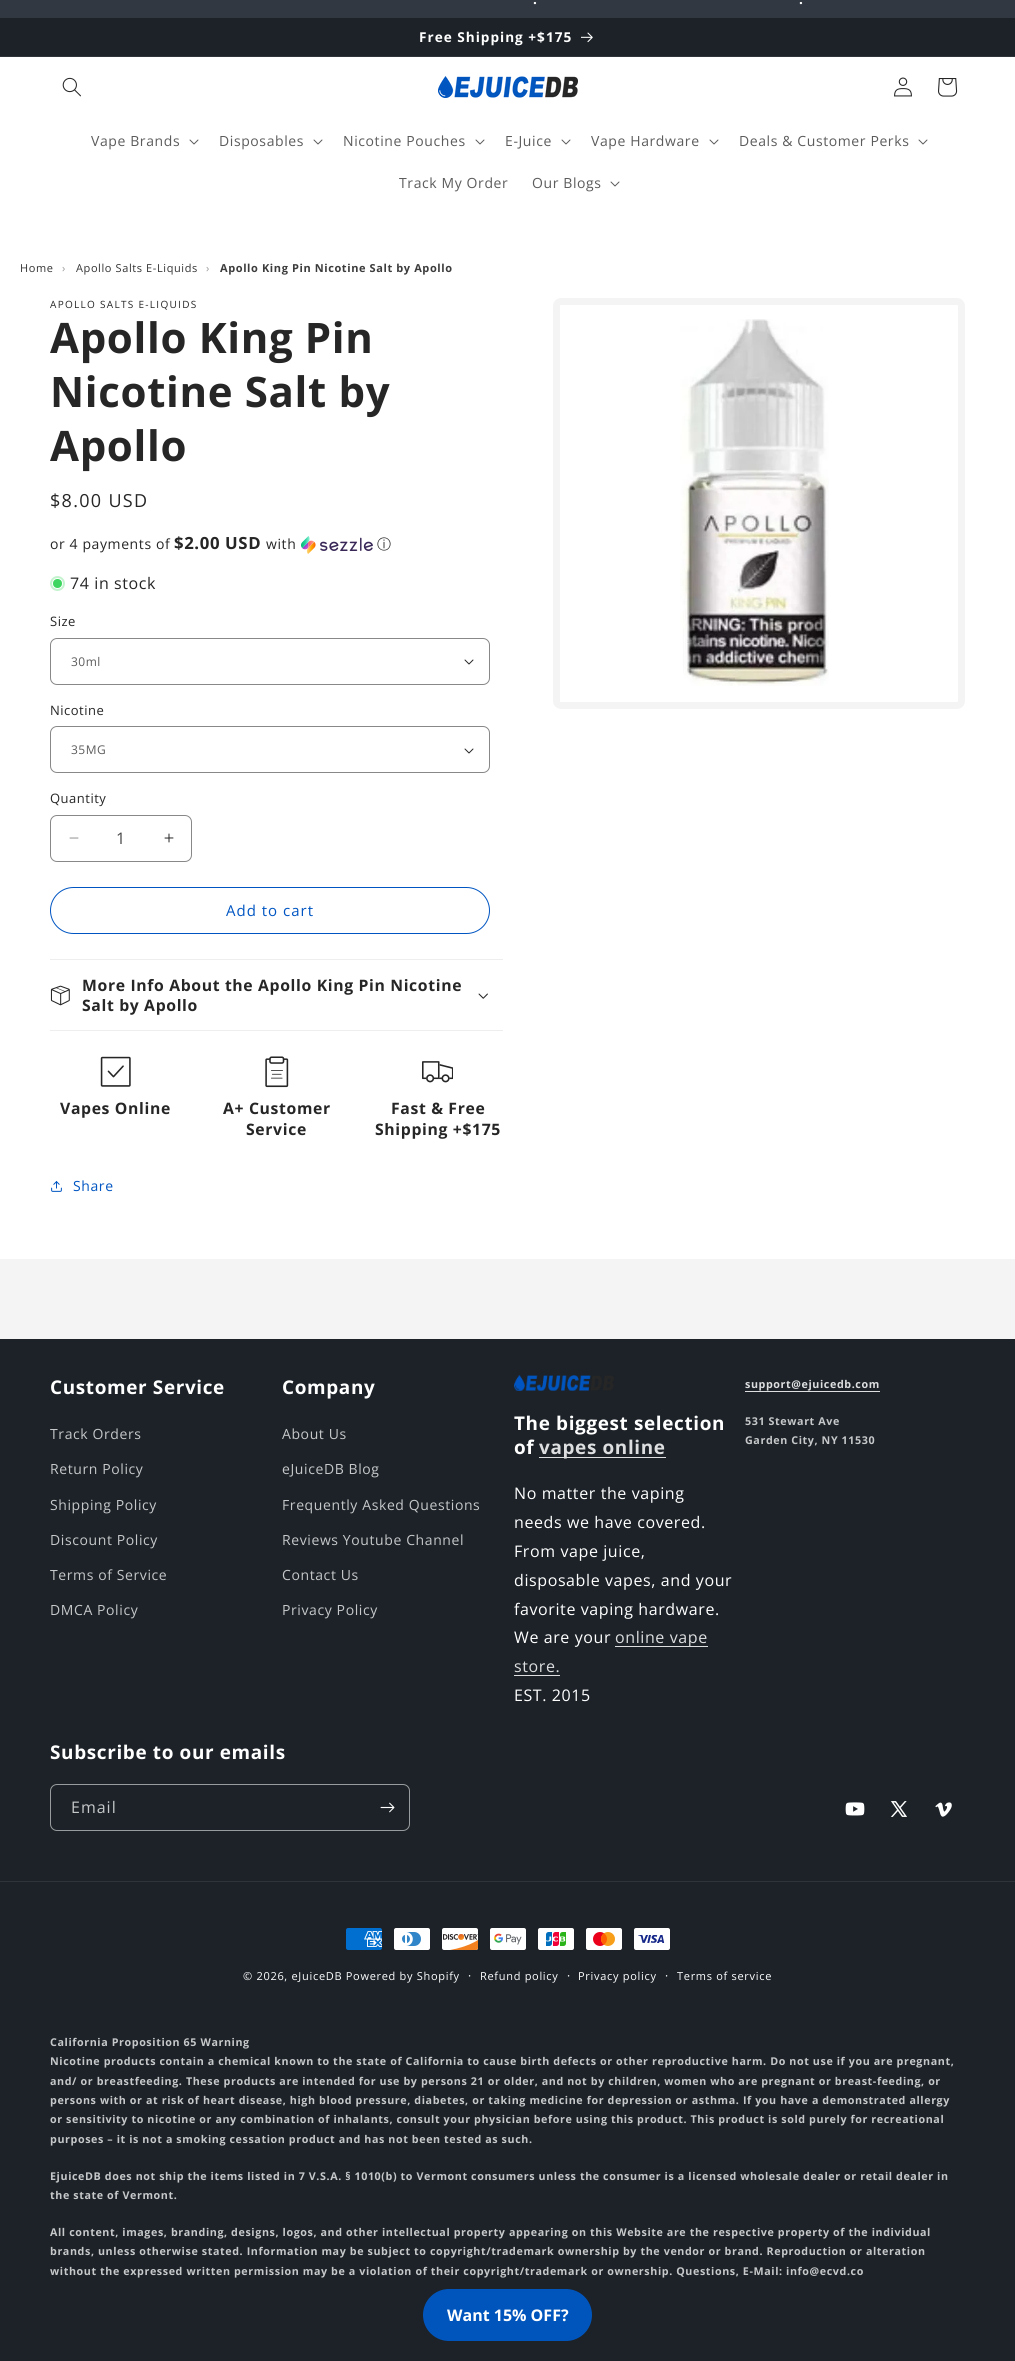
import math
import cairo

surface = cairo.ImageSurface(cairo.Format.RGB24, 1015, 2361)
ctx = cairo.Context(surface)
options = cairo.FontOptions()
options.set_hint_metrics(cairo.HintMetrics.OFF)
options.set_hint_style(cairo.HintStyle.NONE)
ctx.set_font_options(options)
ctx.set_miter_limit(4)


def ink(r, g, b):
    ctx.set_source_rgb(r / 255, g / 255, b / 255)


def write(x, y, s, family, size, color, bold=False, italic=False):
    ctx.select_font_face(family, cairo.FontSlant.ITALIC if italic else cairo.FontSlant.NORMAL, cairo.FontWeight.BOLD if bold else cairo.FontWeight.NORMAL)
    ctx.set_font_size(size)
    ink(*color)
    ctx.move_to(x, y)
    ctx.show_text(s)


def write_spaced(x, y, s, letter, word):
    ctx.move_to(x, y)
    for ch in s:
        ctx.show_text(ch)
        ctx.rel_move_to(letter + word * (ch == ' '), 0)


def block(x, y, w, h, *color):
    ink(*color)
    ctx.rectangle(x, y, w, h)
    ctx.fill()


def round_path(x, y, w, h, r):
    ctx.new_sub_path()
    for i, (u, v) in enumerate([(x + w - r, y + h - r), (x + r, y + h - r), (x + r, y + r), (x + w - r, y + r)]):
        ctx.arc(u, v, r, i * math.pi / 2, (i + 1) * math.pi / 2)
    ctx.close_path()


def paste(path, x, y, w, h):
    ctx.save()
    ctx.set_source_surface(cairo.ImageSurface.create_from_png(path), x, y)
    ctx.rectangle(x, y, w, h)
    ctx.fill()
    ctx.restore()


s1 = dict(family="Open Sans", size=16, color=(71, 71, 71))
s2 = dict(family="Open Sans", size=16, color=(255, 255, 255), bold=True)

ink(244, 244, 244)
ctx.paint()
block(0, 0, 1015, 18, 50, 56, 65)
ctx.select_font_face("Open Sans", cairo.FontSlant.NORMAL, cairo.FontWeight.BOLD)
ctx.set_font_size(13.6)
ink(255, 255, 255)
write_spaced(533, 4, ".", 1, 0)
write_spaced(799, 4, ".", 1, 0)
block(0, 18, 1015, 38, 28, 34, 40)
block(0, 56, 1015, 1, 46, 52, 57)
ink(255, 255, 255)
write_spaced(419, 42, "Free Shipping +$175", 1, 0)
paste("pic1.png", 581, 32, 12, 11)
block(0, 57, 1015, 1202, 255, 255, 255)
paste("pic2.png", 62, 77, 19, 20)
paste("pic3.png", 438, 76, 140, 22)
paste("pic4.png", 894, 77, 18, 20)
paste("pic5.png", 938, 78, 20, 19)
ctx.select_font_face("Open Sans")
ctx.set_font_size(14)
ink(92, 92, 92)
write_spaced(91, 146, "Vape Brands", 0.6, 0)
paste("pic6.png", 189, 139, 10, 6)
write_spaced(219, 146, "Disposables", 0.6, 0)
paste("pic6.png", 313, 139, 10, 6)
write_spaced(343, 146, "Nicotine Pouches", 0.6, 0)
paste("pic6.png", 475, 139, 10, 6)
write_spaced(505, 146, "E-Juice", 0.6, 0)
paste("pic6.png", 561, 139, 10, 6)
write_spaced(591, 146, "Vape Hardware", 0.6, 0)
paste("pic6.png", 709, 139, 10, 6)
write_spaced(739, 146, "Deals & Customer Perks", 0.6, 0)
paste("pic6.png", 918, 139, 10, 6)
write_spaced(399, 188, "Track My Order", 0.6, 0)
write_spaced(532, 188, "Our Blogs", 0.6, 0)
paste("pic6.png", 610, 181, 10, 6)
ctx.set_font_size(11)
ink(51, 51, 51)
write_spaced(20, 272, "Home", 0.6, 0)
ink(153, 153, 153)
write_spaced(62, 272, "›", 0.6, 0)
ink(51, 51, 51)
write_spaced(76, 272, "Apollo Salts E-Liquids", 0.6, 0)
ink(153, 153, 153)
write_spaced(206, 272, "›", 0.6, 0)
ctx.select_font_face("Open Sans", cairo.FontSlant.NORMAL, cairo.FontWeight.BOLD)
ink(60, 60, 60)
write_spaced(220, 272, "Apollo King Pin Nicotine Salt by Apollo", 0.6, 0)
ctx.select_font_face("Open Sans")
ctx.set_font_size(10)
ink(38, 38, 38)
write_spaced(50, 308, "APOLLO SALTS E-LIQUIDS", 1.3, 0)
ctx.select_font_face("Open Sans", cairo.FontSlant.NORMAL, cairo.FontWeight.BOLD)
ctx.set_font_size(42)
write_spaced(50, 353, "Apollo King Pin", 0.65, 0)
write_spaced(50, 407, "Nicotine Salt by", 0.65, 0)
write_spaced(50, 461, "Apollo", 0.65, 0)
ctx.select_font_face("Open Sans")
ctx.set_font_size(18)
write_spaced(50, 507, "$8.00 USD", 1.3, 0)
ctx.set_font_size(14)
write_spaced(50, 549, "or 4 payments of", 0.6, 0)
ctx.select_font_face("Open Sans", cairo.FontSlant.NORMAL, cairo.FontWeight.BOLD)
ctx.set_font_size(16.75)
write_spaced(174, 549, "$2.00 USD", 0.6, 0)
ctx.select_font_face("Open Sans")
ctx.set_font_size(14)
write_spaced(266, 549, "with", 0.6, 0)
paste("pic7.png", 301, 536, 72, 18)
ctx.select_font_face("WenQuanYi Zen Hei Medium")
write_spaced(377, 549, "ⓘ", 0.6, 0)
ink(197, 243, 207)
ctx.new_path()
ctx.arc(57.5, 583.5, 7.5, 0, 2 * math.pi)
ctx.fill()
ink(62, 214, 96)
ctx.arc(57.5, 583.5, 5, 0, 2 * math.pi)
ctx.fill_preserve()
ink(255, 255, 255)
ctx.set_line_width(1)
ctx.stroke()
ctx.select_font_face("Open Sans")
ctx.set_font_size(16)
ink(38, 38, 38)
write_spaced(70, 589, "74 in stock", 0.6, 0)
ctx.set_font_size(13)
write_spaced(50, 626, "Size", 0.5, 0)
paste("pic8.png", 464, 659, 10, 6)
round_path(50.5, 638.5, 439, 46, 6.5)
ink(136, 136, 136)
ctx.stroke()
ctx.set_font_size(12)
ink(92, 92, 92)
write_spaced(71, 666, "30ml", 0.5, 0)
ctx.set_font_size(13)
ink(38, 38, 38)
write_spaced(50, 715, "Nicotine", 0.5, 0)
paste("pic8.png", 464, 748, 10, 6)
round_path(50.5, 726.5, 439, 46, 6.5)
ink(136, 136, 136)
ctx.stroke()
ctx.set_font_size(12)
ink(92, 92, 92)
write_spaced(71, 754, "35MG", 0.5, 0)
ctx.set_font_size(13)
ink(38, 38, 38)
write_spaced(50, 803, "Quantity", 0.5, 0)
paste("pic9.png", 69, 837, 10, 2)
paste("pic10.png", 164, 833, 10, 10)
round_path(50.5, 815.5, 141, 46, 6.5)
ink(136, 136, 136)
ctx.stroke()
write(116, 844, "1", **s1)
round_path(50.5, 887.5, 439, 46, 23)
ink(0, 85, 194)
ctx.stroke()
ctx.set_font_size(15)
write_spaced(226, 916, "Add to cart", 1, 0)
block(50, 959, 453, 1, 238, 238, 238)
block(50, 1030, 453, 1, 238, 238, 238)
paste("pic11.png", 50, 985, 20, 21)
ctx.select_font_face("Open Sans", cairo.FontSlant.NORMAL, cairo.FontWeight.BOLD)
ctx.set_font_size(15.75)
ink(38, 38, 38)
write_spaced(82, 991, "More Info About the Apollo King Pin Nicotine", 0.65, 0)
write_spaced(82, 1011, "Salt by Apollo", 0.65, 0)
paste("pic12.png", 478, 993, 10, 6)
paste("pic13.png", 100, 1056, 31, 31)
write_spaced(60, 1114, "Vapes Online", 0.65, 0)
paste("pic14.png", 265, 1056, 24, 32)
write_spaced(223, 1114, "A+ Customer", 0.65, 0)
write_spaced(246, 1135, "Service", 0.65, 0)
paste("pic15.png", 422, 1061, 31, 22)
write_spaced(391, 1114, "Fast & Free", 0.65, 0)
write_spaced(375, 1135, "Shipping +$175", 0.65, 0)
paste("pic16.png", 51, 1181, 11, 11)
ctx.select_font_face("Open Sans")
ctx.set_font_size(14)
ink(0, 85, 194)
write_spaced(73, 1191, "Share", 0.6, 0)
round_path(556.5, 301.5, 405, 404, 4.5)
ink(244, 244, 244)
ctx.set_line_width(7)
ctx.stroke()
paste("pic17.png", 680, 319, 149, 367)
block(0, 1339, 1015, 1022, 28, 34, 40)
ctx.select_font_face("Open Sans", cairo.FontSlant.NORMAL, cairo.FontWeight.BOLD)
ctx.set_font_size(18.9)
ink(255, 255, 255)
write_spaced(50, 1394, "Customer Service", 0.65, 0)
ctx.select_font_face("Open Sans")
ctx.set_font_size(14)
ink(198, 200, 201)
write_spaced(50, 1439, "Track Orders", 0.6, 0)
write_spaced(50, 1474, "Return Policy", 0.6, 0)
write_spaced(50, 1510, "Shipping Policy", 0.6, 0)
write_spaced(50, 1545, "Discount Policy", 0.6, 0)
write_spaced(50, 1580, "Terms of Service", 0.6, 0)
write_spaced(50, 1615, "DMCA Policy", 0.6, 0)
ctx.select_font_face("Open Sans", cairo.FontSlant.NORMAL, cairo.FontWeight.BOLD)
ctx.set_font_size(18.9)
ink(255, 255, 255)
write_spaced(282, 1394, "Company", 0.65, 0)
ctx.select_font_face("Open Sans")
ctx.set_font_size(14)
ink(198, 200, 201)
write_spaced(282, 1439, "About Us", 0.6, 0)
write_spaced(282, 1474, "eJuiceDB Blog", 0.6, 0)
write_spaced(282, 1510, "Frequently Asked Questions", 0.6, 0)
write_spaced(282, 1545, "Reviews Youtube Channel", 0.6, 0)
write_spaced(282, 1580, "Contact Us", 0.6, 0)
write_spaced(282, 1615, "Privacy Policy", 0.6, 0)
paste("pic18.png", 514, 1375, 100, 16)
ctx.select_font_face("Open Sans", cairo.FontSlant.NORMAL, cairo.FontWeight.BOLD)
ctx.set_font_size(18.9)
ink(255, 255, 255)
write_spaced(514, 1430, "The biggest selection", 0.65, 0)
write_spaced(514, 1454, "of", 0.65, 0)
block(539, 1457, 127, 1, 221, 222, 223)
write_spaced(539, 1454, "vapes online", 0.65, 0)
ctx.select_font_face("Open Sans")
ctx.set_font_size(16)
ink(255, 255, 255)
write_spaced(514, 1499, "No matter the vaping", 0.6, 0)
write_spaced(514, 1528, "needs we have covered.", 0.6, 0)
write_spaced(514, 1557, "From vape juice,", 0.6, 0)
write_spaced(514, 1586, "disposable vapes, and your", 0.6, 0)
write_spaced(514, 1615, "favorite vaping hardware.", 0.6, 0)
write_spaced(514, 1643, "We are your", 0.6, 0)
block(615, 1646, 93, 1, 221, 222, 223)
write_spaced(615, 1643, "online vape", 0.6, 0)
write_spaced(514, 1672, "store.", 0.6, 0)
block(514, 1675, 46, 1, 221, 222, 223)
ink(255, 255, 255)
write_spaced(514, 1701, "EST. 2015", 0.6, 0)
ctx.select_font_face("Open Sans", cairo.FontSlant.NORMAL, cairo.FontWeight.BOLD)
ctx.set_font_size(10.72)
ink(221, 222, 223)
write_spaced(745, 1388, "support@ejuicedb.com", 0.6, 0)
block(745, 1391, 135, 1, 221, 222, 223)
ink(198, 200, 201)
write_spaced(745, 1425, "531 Stewart Ave", 0.6, 0)
write_spaced(745, 1444, "Garden City, NY 11530", 0.6, 0)
ctx.set_font_size(18.9)
ink(255, 255, 255)
write_spaced(50, 1759, "Subscribe to our emails", 0.65, 0)
round_path(50.5, 1784.5, 359, 46, 6.5)
ink(153, 156, 158)
ctx.set_line_width(1)
ctx.stroke()
ctx.select_font_face("Open Sans")
ctx.set_font_size(16)
ink(198, 200, 201)
write_spaced(71, 1813, "Email", 1, 0)
paste("pic19.png", 380, 1802, 15, 11)
paste("pic20.png", 845, 1802, 20, 14)
paste("pic21.png", 890, 1801, 17, 16)
paste("pic22.png", 935, 1802, 17, 15)
block(0, 1881, 1015, 1, 46, 52, 57)
paste("pic23.png", 346, 1928, 36, 22)
paste("pic24.png", 394, 1928, 36, 22)
paste("pic25.png", 442, 1928, 36, 22)
paste("pic26.png", 490, 1928, 36, 22)
paste("pic27.png", 538, 1928, 36, 22)
paste("pic28.png", 586, 1928, 36, 22)
paste("pic29.png", 634, 1928, 36, 22)
ctx.set_font_size(11)
ink(255, 255, 255)
write_spaced(243, 1980, "© 2026, eJuiceDB Powered by Shopify", 0.7, 0)
ctx.set_font_size(12)
write_spaced(468, 1980, "·", 0.7, 0)
ctx.set_font_size(11)
write_spaced(480, 1980, "Refund policy", 0.7, 0)
ctx.set_font_size(12)
write_spaced(567, 1980, "·", 0.7, 0)
ctx.set_font_size(11)
write_spaced(578, 1980, "Privacy policy", 0.7, 0)
ctx.set_font_size(12)
write_spaced(665, 1980, "·", 0.7, 0)
ctx.set_font_size(11)
write_spaced(677, 1980, "Terms of service", 0.7, 0)
ctx.select_font_face("Open Sans", cairo.FontSlant.NORMAL, cairo.FontWeight.BOLD)
ctx.set_font_size(10.72)
ink(198, 200, 201)
write_spaced(50, 2046, "California Proposition 65 Warning", 0.6, 0)
write_spaced(50, 2065, "Nicotine products contain a chemical known to the state of California to cause birth defects or other reproductive harm. Do not use if you are pregnant,", 0.6, 0)
write_spaced(50, 2085, "and/ or breastfeeding. These products are intended for use by persons 21 or older, and not by children, women who are pregnant or breast-feeding, or", 0.6, 0)
write_spaced(50, 2104, "persons with or at risk of heart disease, high blood pressure, diabetes, or taking medicine for depression or asthma. If you have a demonstrated allergy", 0.6, 0)
write_spaced(50, 2123, "or sensitivity to nicotine or any combination of inhalants, consult your physician before using this product. This product is sold purely for recreational", 0.6, 0)
write_spaced(50, 2143, "purposes – it is not a smoking cessation product and has not been tested as such.", 0.6, 0)
write_spaced(50, 2180, "EjuiceDB does not ship the items listed in 7 V.S.A. § 1010(b) to Vermont consumers unless the consumer is a licensed wholesale dealer or retail dealer in", 0.6, 0)
write_spaced(50, 2199, "the state of Vermont.", 0.6, 0)
write_spaced(50, 2236, "All content, images, branding, designs, logos, and other intellectual property appearing on this Website are the respective property of the individual", 0.6, 0)
write_spaced(50, 2255, "brands, unless otherwise stated. Information may be subject to copyright/trademark ownership by the vendor or brand. Reproduction or alteration", 0.6, 0)
write_spaced(50, 2275, "without the expressed written permission may be a violation of their copyright/trademark or ownership. Questions, E-Mail: info@ecvd.co", 0.6, 0)
ink(0, 85, 189)
round_path(423, 2289, 169, 52, 26)
ctx.fill()
write(447, 2321, "Want 15% OFF?", **s2)
surface.write_to_png("screenshot.png")
